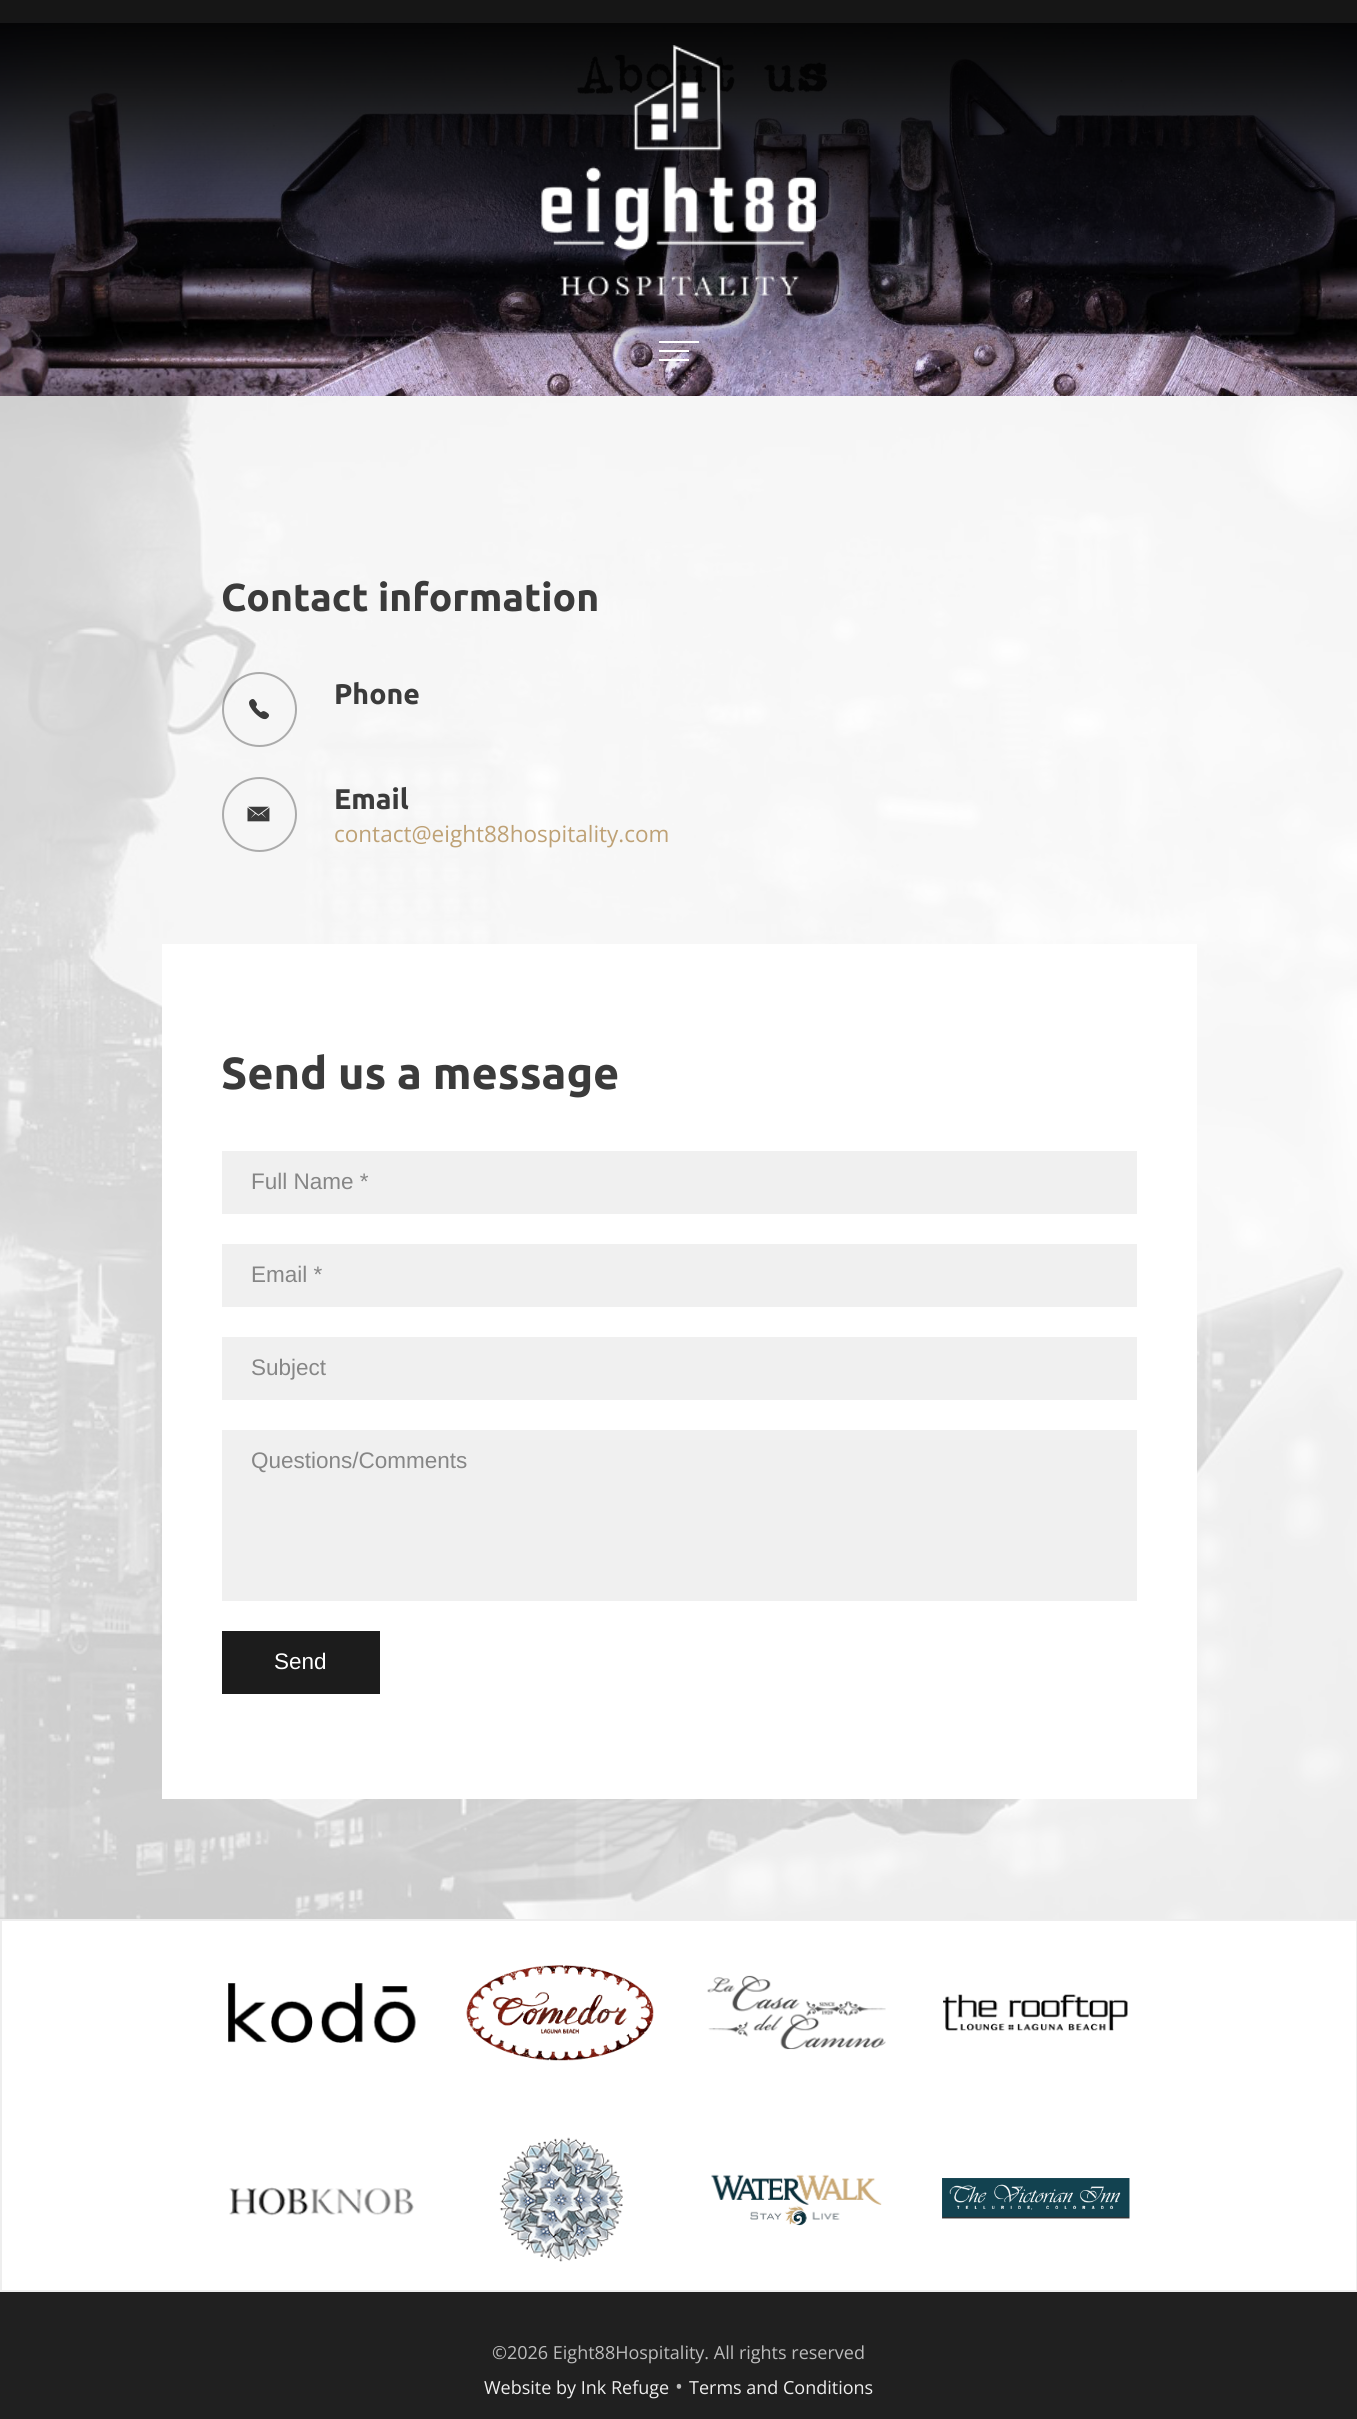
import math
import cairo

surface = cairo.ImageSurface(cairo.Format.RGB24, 1357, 2419)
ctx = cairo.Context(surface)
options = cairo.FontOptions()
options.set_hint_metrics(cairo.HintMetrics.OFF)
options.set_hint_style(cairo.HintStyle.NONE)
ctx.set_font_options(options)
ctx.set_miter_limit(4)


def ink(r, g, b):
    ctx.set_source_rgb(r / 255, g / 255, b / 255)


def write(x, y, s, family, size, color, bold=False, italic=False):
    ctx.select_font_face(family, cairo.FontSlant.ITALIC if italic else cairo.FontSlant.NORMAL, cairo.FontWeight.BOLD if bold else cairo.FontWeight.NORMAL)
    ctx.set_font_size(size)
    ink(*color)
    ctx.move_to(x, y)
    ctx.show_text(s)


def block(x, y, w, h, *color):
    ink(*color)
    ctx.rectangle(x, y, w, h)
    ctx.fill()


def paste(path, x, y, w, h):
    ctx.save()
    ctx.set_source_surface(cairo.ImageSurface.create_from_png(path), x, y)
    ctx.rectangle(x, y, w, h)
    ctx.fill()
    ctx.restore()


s1 = dict(family="Ubuntu", size=39, color=(59, 59, 59), bold=True)
s2 = dict(family="Ubuntu", size=28.5, color=(59, 59, 59), bold=True)
s3 = dict(family="Open Sans", size=22.5, color=(190, 161, 117))
s4 = dict(family="Ubuntu", size=45, color=(59, 59, 59), bold=True)
s5 = dict(family="Liberation Sans", size=22.5, color=(134, 134, 134))
s6 = dict(family="Liberation Sans", size=22.5, color=(255, 255, 255))
s7 = dict(family="Open Sans", size=18, color=(188, 188, 188))
s8 = dict(family="Open Sans", size=18, color=(238, 238, 238))
s9 = dict(family="Open Sans", size=21, color=(188, 188, 188))

ink(255, 255, 255)
ctx.paint()
paste("pic2.png", 0, 0, 1357, 396)
ctx.set_source_rgba(0.11, 0.11, 0.11, 0.75)
ctx.rectangle(0, 0, 1357, 23)
ctx.fill()
paste("pic1.png", 541, 45, 275, 251)
block(659, 341, 40, 2, 255, 255, 255)
block(659, 350, 30, 2, 255, 255, 255)
block(659, 359, 30, 2, 255, 255, 255)
paste("pic3.png", 0, 396, 1357, 1523)
write(221, 611, "Contact information", **s1)
paste("pic4.png", 249, 699, 20, 21)
ctx.arc(259.5, 709.5, 36.5, 0, 2 * math.pi)
ctx.set_source_rgba(0.231, 0.231, 0.231, 0.4)
ctx.stroke()
write(334, 704, "Phone", **s2)
paste("pic5.png", 247, 806, 23, 16)
ctx.arc(259.5, 814.5, 36.5, 0, 2 * math.pi)
ink(171, 171, 171)
ctx.stroke()
write(334, 809, "Email", **s2)
write(334, 842, "contact@eight88hospitality.com", **s3)
block(162, 944, 1035, 855, 255, 255, 255)
write(221, 1089, "Send us a message", **s4)
block(222, 1151, 915, 63, 240, 240, 240)
write(251, 1189, "Full Name *", **s5)
block(222, 1244, 915, 63, 240, 240, 240)
write(251, 1282, "Email *", **s5)
block(222, 1337, 915, 63, 240, 240, 240)
write(251, 1375, "Subject", **s5)
block(222, 1430, 915, 171, 240, 240, 240)
write(251, 1468, "Questions/Comments", **s5)
block(222, 1631, 158, 63, 28, 28, 28)
write(274, 1669, "Send", **s6)
ctx.rectangle(1, 1920, 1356, 371)
ink(238, 238, 238)
ctx.stroke()
paste("pic6.png", 228, 1983, 188, 60)
paste("pic7.png", 466, 1965, 188, 96)
paste("pic8.png", 707, 1975, 179, 75)
paste("pic9.png", 943, 1994, 185, 37)
paste("pic10.png", 229, 2187, 185, 29)
paste("pic11.png", 499, 2137, 124, 125)
paste("pic12.png", 711, 2174, 171, 52)
paste("pic13.png", 942, 2178, 188, 41)
block(0, 2292, 1357, 127, 32, 32, 32)
write(492, 2359, "©2026 Eight88Hospitality. All rights reserved", **s7)
write(484, 2394, "Website by Ink Refuge", **s8)
write(675, 2394, "•", **s9)
write(689, 2394, "Terms and Conditions", **s8)
surface.write_to_png("screenshot.png")
